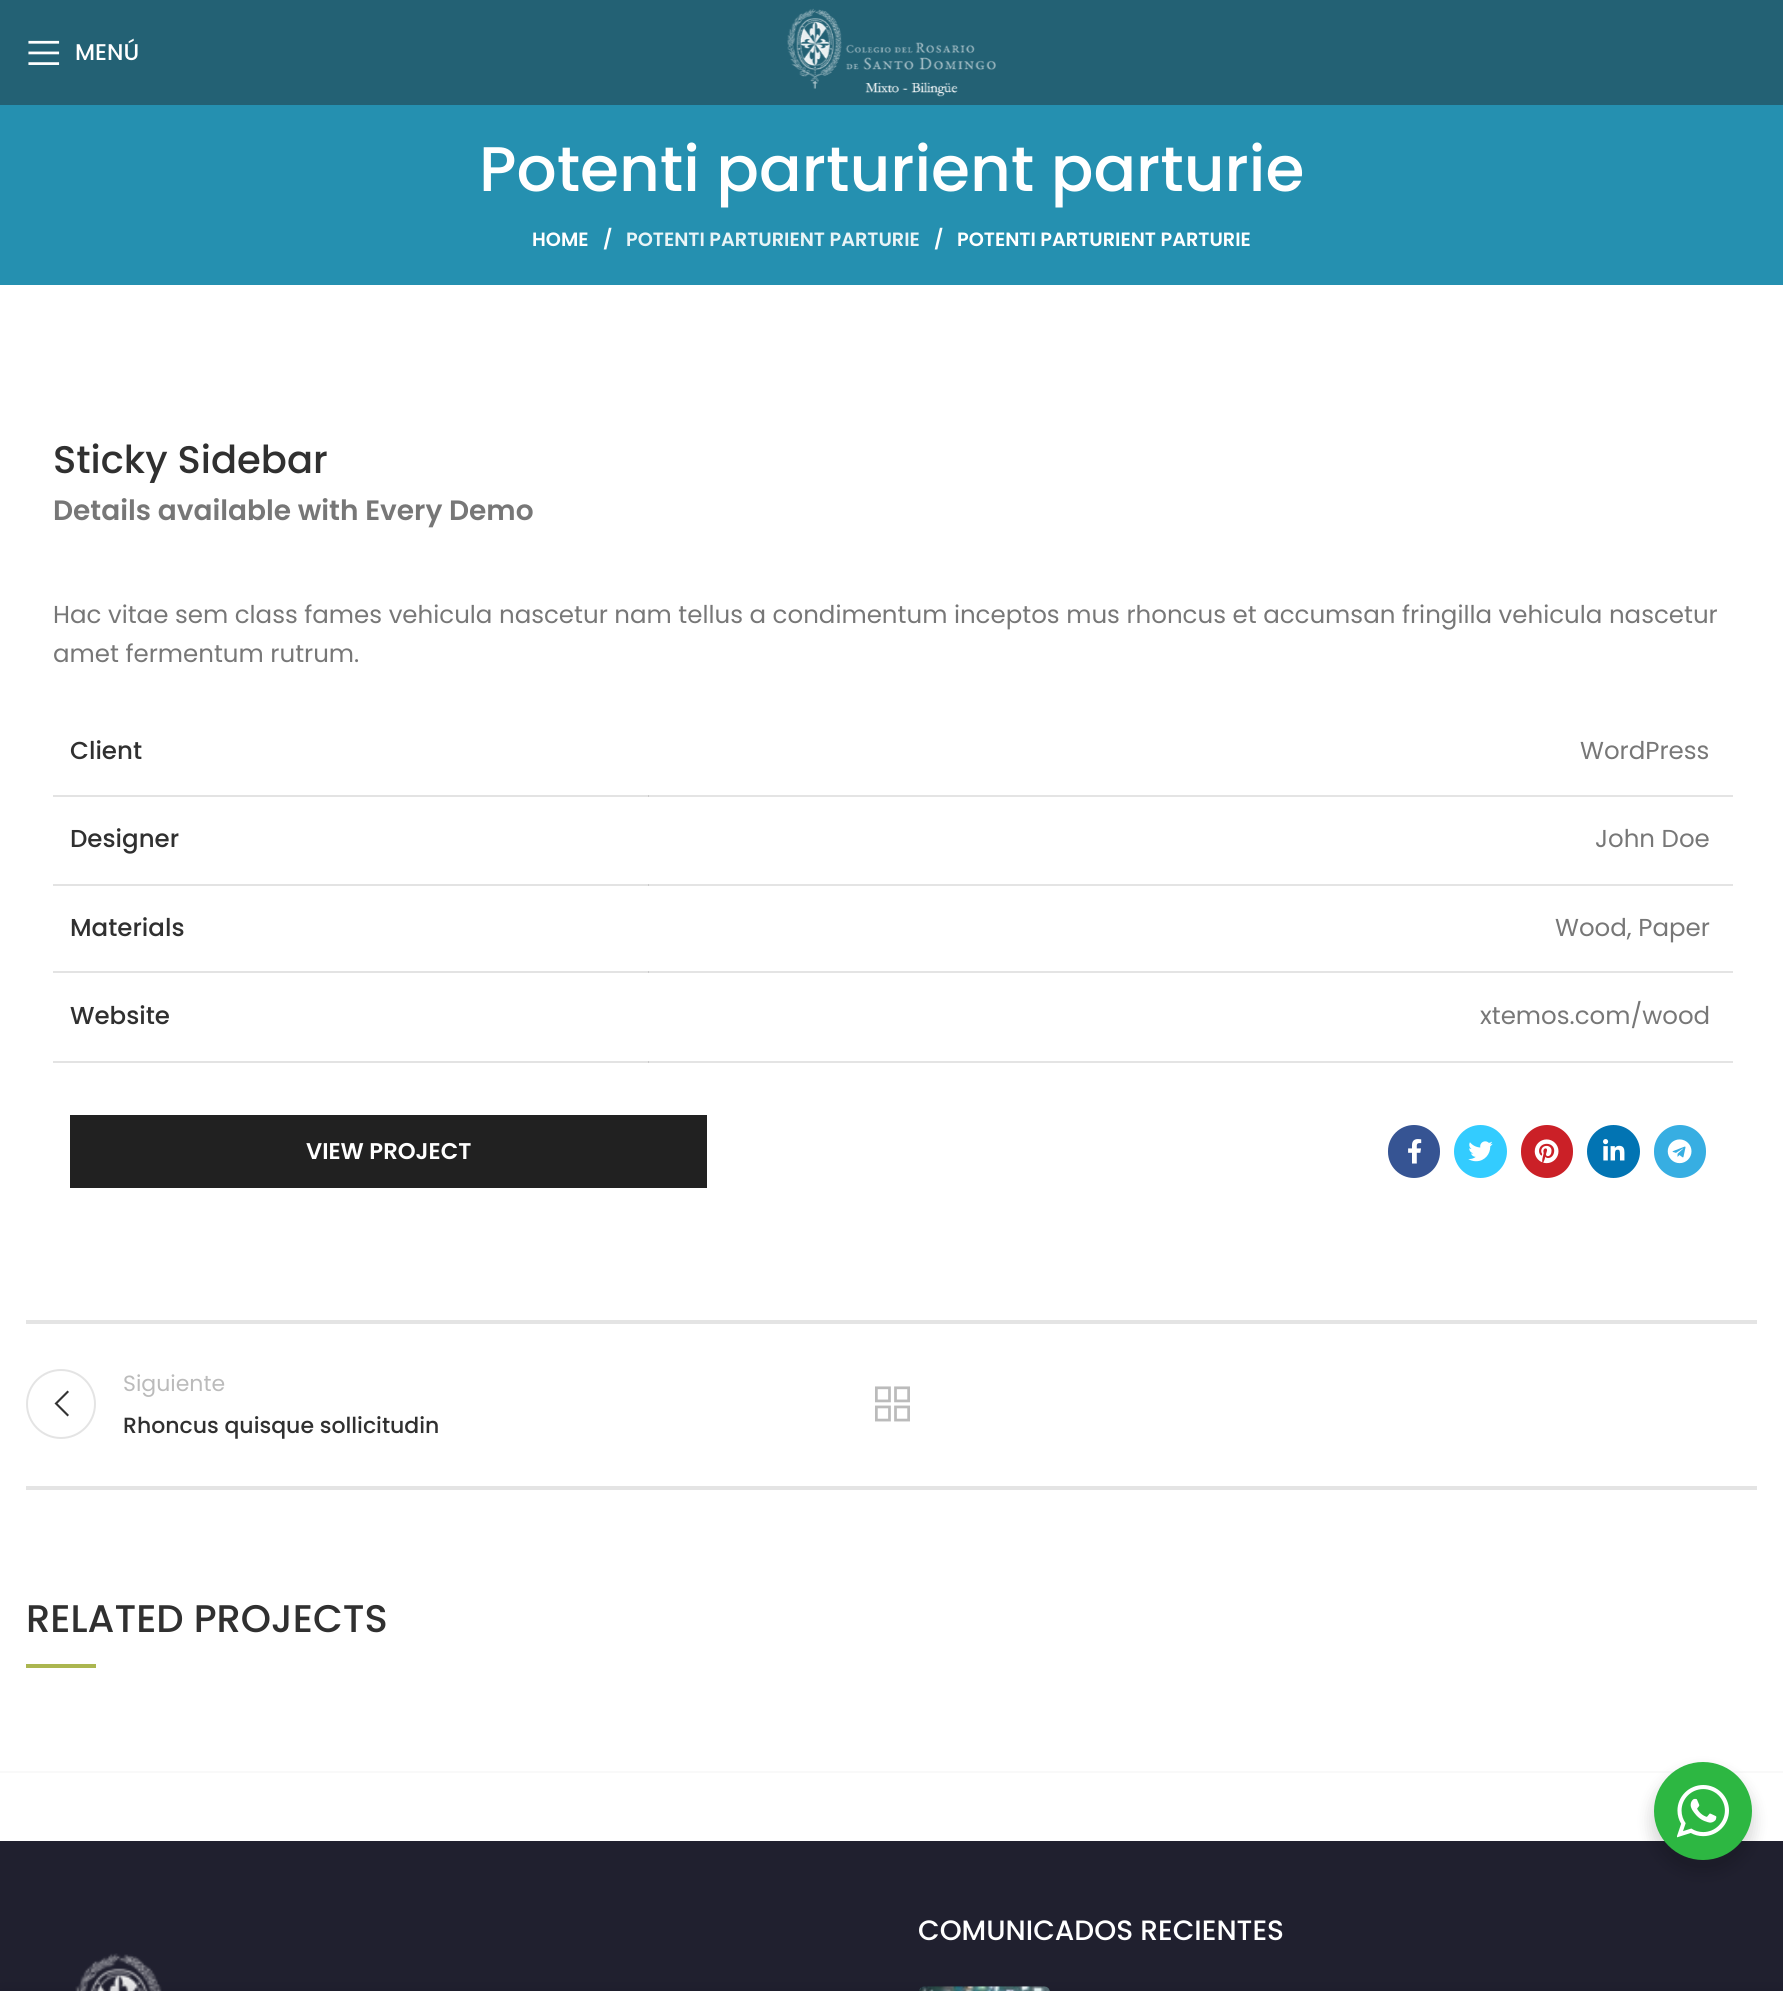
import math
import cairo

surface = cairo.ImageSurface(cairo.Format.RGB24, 1783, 1991)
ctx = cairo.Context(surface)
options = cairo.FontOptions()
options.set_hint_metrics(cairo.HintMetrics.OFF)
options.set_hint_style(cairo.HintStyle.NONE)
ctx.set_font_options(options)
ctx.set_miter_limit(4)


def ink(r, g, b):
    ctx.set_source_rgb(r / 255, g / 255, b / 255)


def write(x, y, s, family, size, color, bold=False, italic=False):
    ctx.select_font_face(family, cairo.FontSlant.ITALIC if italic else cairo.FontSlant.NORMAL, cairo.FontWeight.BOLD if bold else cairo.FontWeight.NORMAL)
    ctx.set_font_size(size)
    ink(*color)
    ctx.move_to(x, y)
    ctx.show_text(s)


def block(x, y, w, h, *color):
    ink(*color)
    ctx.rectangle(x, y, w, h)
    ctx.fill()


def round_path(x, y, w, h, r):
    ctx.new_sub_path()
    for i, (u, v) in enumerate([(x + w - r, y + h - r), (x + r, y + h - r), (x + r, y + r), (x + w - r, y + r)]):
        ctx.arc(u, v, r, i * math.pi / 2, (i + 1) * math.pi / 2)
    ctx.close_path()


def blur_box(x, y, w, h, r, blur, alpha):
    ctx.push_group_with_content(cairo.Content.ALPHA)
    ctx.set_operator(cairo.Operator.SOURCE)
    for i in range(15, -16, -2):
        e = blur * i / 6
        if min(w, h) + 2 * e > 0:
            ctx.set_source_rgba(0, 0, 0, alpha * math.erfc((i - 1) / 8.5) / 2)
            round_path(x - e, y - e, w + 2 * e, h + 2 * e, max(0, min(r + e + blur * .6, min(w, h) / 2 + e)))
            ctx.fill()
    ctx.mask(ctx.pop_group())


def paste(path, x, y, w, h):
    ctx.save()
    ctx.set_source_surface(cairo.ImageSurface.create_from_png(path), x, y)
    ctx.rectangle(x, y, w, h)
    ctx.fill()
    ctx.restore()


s1 = dict(family="Poppins Medium", size=22.75, color=(255, 255, 255))
s2 = dict(family="Poppins Medium", size=63, color=(255, 255, 255))
s3 = dict(family="Poppins SemiBold", size=19.25, color=(255, 255, 255))
s4 = dict(family="Poppins SemiBold", size=19.25, color=(233, 244, 247))
s5 = dict(family="Poppins Medium", size=38.5, color=(48, 48, 48))
s6 = dict(family="Poppins SemiBold", size=28, color=(119, 119, 119))
s7 = dict(family="Poppins", size=24.5, color=(119, 119, 119))
s8 = dict(family="Poppins Medium", size=24.5, color=(48, 48, 48))
s9 = dict(family="Poppins SemiBold", size=22.75, color=(255, 255, 255))
s10 = dict(family="Poppins", size=22, color=(187, 187, 187))
s11 = dict(family="Poppins Medium", size=22, color=(48, 48, 48))
s12 = dict(family="Poppins Medium", size=28, color=(255, 255, 255))

ink(255, 255, 255)
ctx.paint()
block(53, 795, 596, 2, 227, 227, 227)
block(53, 884, 596, 2, 227, 227, 227)
block(53, 971, 596, 2, 227, 227, 227)
block(53, 1061, 596, 2, 227, 227, 227)
block(0, 0, 1783, 105, 35, 97, 116)
paste("pic1.png", 28, 40, 32, 25)
write(75, 60, "MENÚ", **s1)
paste("pic2.png", 787, 8, 209, 89)
block(0, 105, 1783, 180, 37, 144, 176)
write(479, 191, "Potenti parturient parturie", **s2)
write(532, 246, "HOME", **s3)
write(603, 246, "/", **s3)
write(626, 246, "POTENTI PARTURIENT PARTURIE", **s4)
write(934, 246, "/", **s3)
write(957, 246, "POTENTI PARTURIENT PARTURIE", **s3)
write(53, 473, "Sticky Sidebar", **s5)
write(53, 520, "Details available with Every Demo", **s6)
write(53, 623, "Hac vitae sem class fames vehicula nascetur nam tellus a condimentum inceptos mus rhoncus et accumsan fringilla vehicula nascetur", **s7)
write(53, 662, "amet fermentum rutrum.", **s7)
write(70, 759, "Client", **s8)
block(648, 795, 1085, 2, 228, 228, 228)
block(648, 795, 1, 2, 203, 203, 203)
write(1580, 759, "WordPress", **s7)
write(70, 847, "Designer", **s8)
block(648, 884, 1085, 2, 228, 228, 228)
block(648, 884, 1, 2, 203, 203, 203)
write(1595, 847, "John Doe", **s7)
write(70, 936, "Materials", **s8)
block(648, 971, 1085, 2, 228, 228, 228)
block(648, 971, 1, 2, 203, 203, 203)
write(1555, 936, "Wood, Paper", **s7)
write(70, 1024, "Website", **s8)
block(648, 1061, 1085, 2, 228, 228, 228)
block(648, 1061, 1, 2, 203, 203, 203)
write(1480, 1024, "xtemos.com/wood", **s7)
block(70, 1115, 637, 73, 33, 33, 33)
write(306, 1159, "VIEW PROJECT", **s9)
ink(54, 84, 147)
round_path(1388, 1125, 52, 53, 26)
ctx.fill()
paste("pic3.png", 1408, 1139, 14, 25)
ink(51, 204, 255)
ctx.arc(1480.5, 1151.5, 26.5, 0, 2 * math.pi)
ctx.fill()
paste("pic4.png", 1468, 1141, 25, 21)
ink(203, 32, 39)
round_path(1521, 1125, 52, 53, 26)
ctx.fill()
paste("pic5.png", 1534, 1139, 25, 25)
ink(2, 116, 179)
ctx.arc(1613.5, 1151.5, 26.5, 0, 2 * math.pi)
ctx.fill()
paste("pic6.png", 1603, 1139, 22, 22)
ink(55, 174, 226)
round_path(1654, 1125, 52, 53, 26)
ctx.fill()
paste("pic7.png", 1667, 1139, 25, 25)
block(26, 1320, 1731, 4, 228, 228, 228)
block(26, 1486, 1731, 4, 228, 228, 228)
ctx.arc(61, 1404, 34, 0, 2 * math.pi)
ctx.stroke()
ink(51, 51, 51)
ctx.new_path()
ctx.move_to(69, 1392)
ctx.line_to(67.5, 1390.5)
ctx.line_to(54.5, 1403.5)
ctx.line_to(67.5, 1416.5)
ctx.line_to(69, 1415)
ctx.line_to(57.5, 1403.5)
ctx.close_path()
ctx.fill()
write(123, 1391, "Siguiente", **s10)
write(123, 1433, "Rhoncus quisque sollicitudin", **s11)
paste("pic8.png", 875, 1386, 35, 36)
write(26, 1632, "RELATED PROJECTS", **s5)
block(26, 1664, 70, 4, 171, 182, 80)
block(0, 1771, 1783, 2, 249, 249, 249)
block(0, 1841, 1783, 150, 32, 32, 47)
write(918, 1940, "COMUNICADOS RECIENTES", **s12)
paste("pic9.png", 919, 1986, 131, 5)
paste("pic10.png", 75, 1953, 87, 38)
ink(0, 0, 0)
blur_box(1650, 1769, 105, 105, 52.5, 7, 0.14)
ink(45, 183, 66)
ctx.arc(1703, 1811, 49, 0, 2 * math.pi)
ctx.fill()
paste("pic11.png", 1677, 1785, 52, 53)
ink(0, 0, 0)
blur_box(0, 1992, 1783, 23, 0, 8, 0.14)
surface.write_to_png("screenshot.png")
